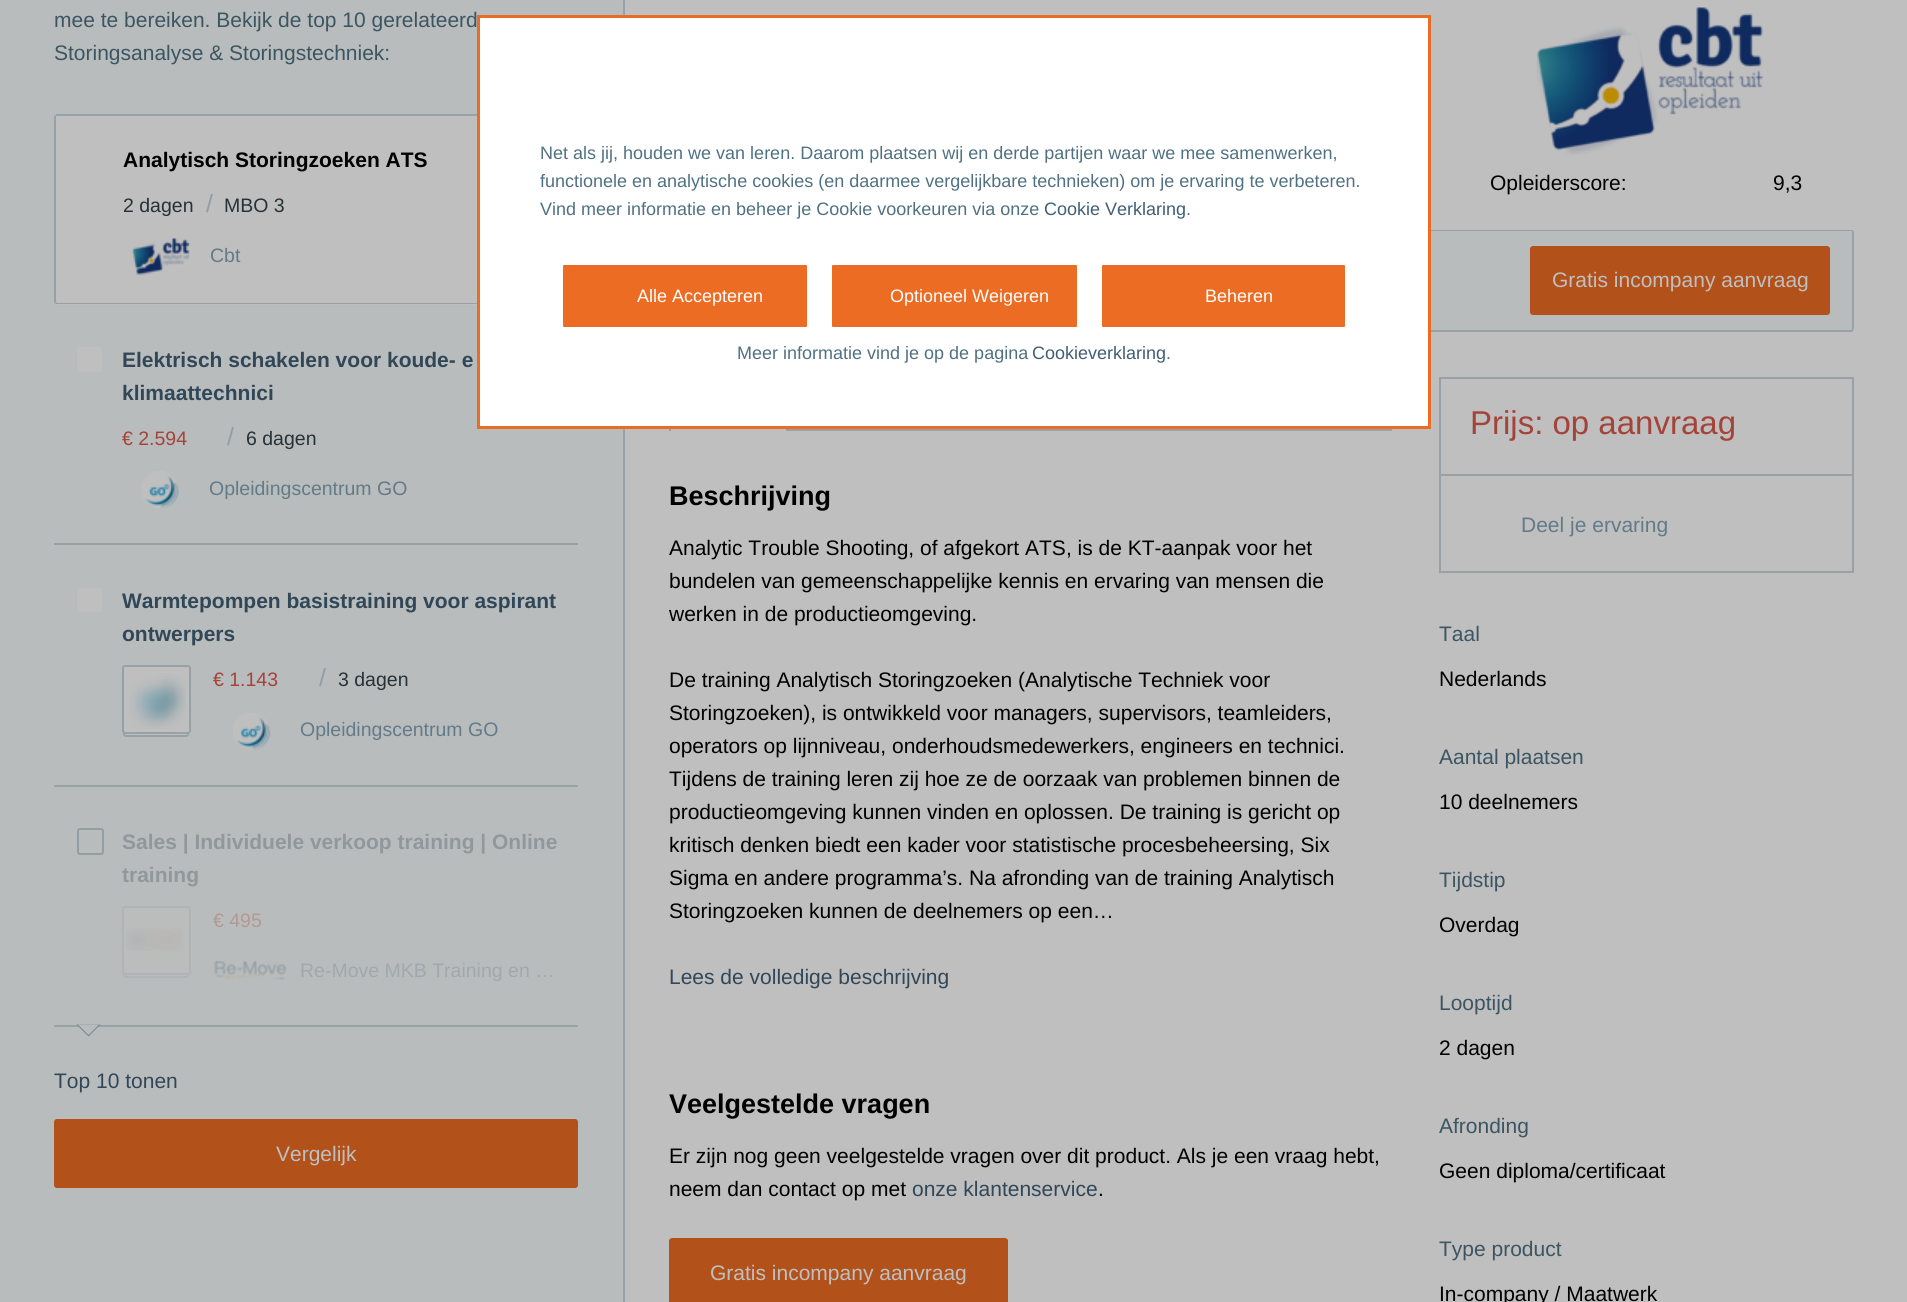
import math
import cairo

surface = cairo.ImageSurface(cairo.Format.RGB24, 1907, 1302)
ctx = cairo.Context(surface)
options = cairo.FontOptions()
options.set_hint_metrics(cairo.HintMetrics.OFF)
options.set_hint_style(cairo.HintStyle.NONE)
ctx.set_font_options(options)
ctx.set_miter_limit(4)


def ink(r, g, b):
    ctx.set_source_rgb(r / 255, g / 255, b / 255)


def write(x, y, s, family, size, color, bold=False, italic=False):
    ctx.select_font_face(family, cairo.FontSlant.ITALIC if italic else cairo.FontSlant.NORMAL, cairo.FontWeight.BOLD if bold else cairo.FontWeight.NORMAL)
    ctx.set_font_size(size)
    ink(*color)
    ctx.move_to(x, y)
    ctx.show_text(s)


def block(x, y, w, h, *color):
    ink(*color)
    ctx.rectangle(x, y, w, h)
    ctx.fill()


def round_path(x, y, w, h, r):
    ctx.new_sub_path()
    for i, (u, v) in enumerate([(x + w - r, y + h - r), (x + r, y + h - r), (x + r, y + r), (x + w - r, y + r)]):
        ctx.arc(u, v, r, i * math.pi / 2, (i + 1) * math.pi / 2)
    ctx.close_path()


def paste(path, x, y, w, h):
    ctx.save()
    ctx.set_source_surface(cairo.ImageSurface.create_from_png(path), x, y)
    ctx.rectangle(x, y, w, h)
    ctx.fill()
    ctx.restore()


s1 = dict(family="Liberation Sans", size=21, color=(60, 85, 98))
s2 = dict(family="Liberation Sans", size=21, color=(0, 0, 0), bold=True)
s3 = dict(family="Liberation Sans", size=19.5, color=(38, 50, 56))
s4 = dict(family="Liberation Sans", size=25, color=(147, 158, 164))
s5 = dict(family="Liberation Sans", size=19.5, color=(99, 122, 137))
s6 = dict(family="Liberation Sans", size=21, color=(49, 71, 88), bold=True)
s7 = dict(family="Liberation Sans", size=19.5, color=(164, 67, 57))
s8 = dict(family="Liberation Sans", size=21, color=(144, 152, 158), bold=True)
s9 = dict(family="Liberation Sans", size=19.5, color=(179, 152, 149))
s10 = dict(family="Liberation Sans", size=19.5, color=(160, 168, 173))
s11 = dict(family="Liberation Sans", size=21, color=(49, 71, 88))
s12 = dict(family="Liberation Sans", size=21, color=(191, 191, 191))
s13 = dict(family="Liberation Sans", size=21, color=(0, 0, 0))
s14 = dict(family="Liberation Sans", size=27, color=(0, 0, 0), bold=True)
s15 = dict(family="Liberation Sans", size=33, color=(164, 67, 57))
s16 = dict(family="Liberation Sans", size=21, color=(99, 122, 137))
s17 = dict(family="Liberation Sans", size=18, color=(80, 113, 131))
s18 = dict(family="Liberation Sans", size=18, color=(65, 94, 117))
s19 = dict(family="Liberation Sans", size=18, color=(255, 255, 255))

ink(191, 191, 191)
ctx.paint()
block(0, 0, 623, 1302, 185, 188, 188)
block(623, 0, 2, 1302, 152, 161, 166)
write(54, 27, "mee te bereiken. Bekijk de top 10 gerelateerd", **s1)
write(54, 60, "Storingsanalyse & Storingstechniek:", **s1)
block(54, 1025, 524, 2, 152, 161, 166)
ink(191, 191, 191)
ctx.new_path()
ctx.move_to(57, 114)
ctx.line_to(578, 114)
ctx.line_to(578, 305)
ctx.line_to(57, 305)
ctx.curve_to(55.5, 305, 54, 303.5, 54, 302)
ctx.line_to(54, 117)
ctx.curve_to(54, 115.5, 55.5, 114, 57, 114)
ctx.close_path()
ctx.fill()
ink(152, 161, 166)
ctx.new_path()
ctx.move_to(57, 114)
ctx.line_to(55, 115)
ctx.line_to(56, 116)
ctx.line_to(576, 116)
ctx.line_to(578, 114)
ctx.close_path()
ctx.fill()
ctx.new_path()
ctx.move_to(577, 304)
ctx.line_to(57, 304)
ctx.line_to(55, 304)
ctx.line_to(56, 302)
ctx.line_to(57, 303)
ctx.line_to(576, 303)
ctx.close_path()
ctx.fill()
ctx.new_path()
ctx.move_to(54, 117)
ctx.line_to(54, 302)
ctx.line_to(55, 304)
ctx.line_to(56, 302)
ctx.line_to(56, 116)
ctx.line_to(55, 115)
ctx.close_path()
ctx.fill()
write(123, 167, "Analytisch Storingzoeken ATS", **s2)
write(123, 212, "2 dagen", **s3)
write(206, 212, "/", **s4)
write(224, 212, "MBO 3", **s3)
paste("pic1.png", 132, 238, 58, 38)
write(210, 262, "Cbt", **s5)
block(54, 543, 524, 2, 152, 161, 166)
ink(191, 191, 191)
round_path(77, 347, 25, 25, 3)
ctx.fill()
write(122, 367, "Elektrisch schakelen voor koude- e", **s6)
write(122, 400, "klimaattechnici", **s6)
ctx.save()
ctx.rectangle(122, 410, 456, 45)
ctx.clip()
write(122, 445, "€ 2.594", **s7)
ctx.restore()
write(227, 445, "/", **s4)
write(246, 445, "6 dagen", **s3)
paste("pic2.png", 141, 471, 38, 38)
write(209, 495, "Opleidingscentrum GO", **s5)
block(54, 785, 524, 2, 152, 161, 166)
ink(191, 191, 191)
round_path(77, 588, 25, 24, 3)
ctx.fill()
write(122, 608, "Warmtepompen basistraining voor aspirant", **s6)
write(122, 641, "ontwerpers", **s6)
ink(191, 191, 191)
round_path(124, 723, 64, 13, 2)
ctx.fill_preserve()
ink(152, 161, 166)
ctx.stroke()
ink(191, 191, 191)
round_path(123, 666, 67, 67, 2)
ctx.fill_preserve()
ink(152, 161, 166)
ctx.stroke()
paste("pic3.png", 129, 673, 57, 56)
write(213, 686, "€ 1.143", **s7)
write(319, 686, "/", **s4)
write(338, 686, "3 dagen", **s3)
paste("pic4.png", 233, 713, 38, 37)
write(300, 736, "Opleidingscentrum GO", **s5)
round_path(78, 829, 25, 25, 2)
ink(148, 157, 161)
ctx.stroke()
write(122, 849, "Sales | Individuele verkoop training | Online", **s8)
write(122, 882, "training", **s8)
round_path(124, 964, 64, 13, 2)
ink(176, 180, 182)
ctx.stroke()
ink(187, 189, 189)
round_path(123, 907, 67, 67, 2)
ctx.fill_preserve()
ink(176, 180, 182)
ctx.stroke()
paste("pic5.png", 126, 928, 57, 23)
write(213, 927, "€ 495", **s9)
paste("pic6.png", 214, 960, 73, 20)
write(300, 977, "Re-Move MKB Training en …", **s10)
ink(118, 134, 143)
ctx.new_path()
ctx.move_to(76.5, 1024.5)
ctx.line_to(100.5, 1024.5)
ctx.line_to(88.5, 1036.5)
ctx.close_path()
ctx.fill()
ink(185, 188, 188)
ctx.new_path()
ctx.move_to(78, 1024.5)
ctx.line_to(99, 1024.5)
ctx.line_to(88.5, 1035)
ctx.close_path()
ctx.fill()
write(54, 1088, "Top 10 tonen", **s11)
ink(178, 81, 26)
round_path(54, 1119, 524, 69, 3)
ctx.fill()
write(276, 1161, "Vergelijk", **s12)
paste("pic7.png", 1536, 7, 227, 148)
write(1490, 190, "Opleiderscore:", **s13)
write(1773, 190, "9,3", **s13)
ink(185, 188, 188)
ctx.new_path()
ctx.move_to(675, 231)
ctx.line_to(1851, 231)
ctx.curve_to(1852, 231, 1852, 232, 1852, 232)
ctx.line_to(1852, 328)
ctx.curve_to(1852, 329, 1852, 330, 1851, 330)
ctx.line_to(675, 330)
ctx.close_path()
ctx.fill()
ink(152, 161, 166)
ctx.new_path()
ctx.move_to(672, 230)
ctx.line_to(671, 230)
ctx.line_to(675, 231)
ctx.line_to(1851, 231)
ctx.line_to(1852, 232)
ctx.line_to(1853, 230)
ctx.line_to(1851, 230)
ctx.close_path()
ctx.fill()
ctx.new_path()
ctx.move_to(1853, 230)
ctx.line_to(1854, 232)
ctx.line_to(1854, 328)
ctx.line_to(1853, 331)
ctx.line_to(1852, 329)
ctx.line_to(1852, 232)
ctx.close_path()
ctx.fill()
ctx.new_path()
ctx.move_to(670, 332)
ctx.line_to(670, 331)
ctx.line_to(675, 330)
ctx.line_to(1851, 330)
ctx.line_to(1852, 329)
ctx.line_to(1853, 331)
ctx.line_to(1853, 332)
ctx.close_path()
ctx.fill()
ink(178, 81, 26)
round_path(1530, 246, 300, 69, 3)
ctx.fill()
write(1552, 287, "Gratis incompany aanvraag", **s12)
block(786, 429, 606, 2, 152, 161, 166)
block(669, 429, 2, 2, 152, 161, 166)
write(669, 505, "Beschrijving", **s14)
write(669, 555, "Analytic Trouble Shooting, of afgekort ATS, is de KT-aanpak voor het", **s13)
write(669, 588, "bundelen van gemeenschappelijke kennis en ervaring van mensen die", **s13)
write(669, 621, "werken in de productieomgeving.", **s13)
write(669, 687, "De training Analytisch Storingzoeken (Analytische Techniek voor", **s13)
write(669, 720, "Storingzoeken), is ontwikkeld voor managers, supervisors, teamleiders,", **s13)
write(669, 753, "operators op lijnniveau, onderhoudsmedewerkers, engineers en technici.", **s13)
write(669, 786, "Tijdens de training leren zij hoe ze de oorzaak van problemen binnen de", **s13)
write(669, 819, "productieomgeving kunnen vinden en oplossen. De training is gericht op", **s13)
write(669, 852, "kritisch denken biedt een kader voor statistische procesbeheersing, Six", **s13)
write(669, 885, "Sigma en andere programma’s. Na afronding van de training Analytisch", **s13)
write(669, 918, "Storingzoeken kunnen de deelnemers op een…", **s13)
write(669, 984, "Lees de volledige beschrijving", **s11)
write(669, 1113, "Veelgestelde vragen", **s14)
write(669, 1163, "Er zijn nog geen veelgestelde vragen over dit product. Als je een vraag hebt,", **s13)
write(669, 1196, "neem dan contact op met", **s13)
write(912, 1196, "onze klantenservice", **s11)
write(1098, 1196, ".", **s13)
ink(178, 81, 26)
round_path(669, 1238, 339, 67, 3)
ctx.fill()
write(710, 1280, "Gratis incompany aanvraag", **s12)
ctx.rectangle(1440, 378, 413, 194)
ink(152, 161, 166)
ctx.stroke()
block(1440, 474, 413, 2, 152, 161, 166)
write(1470, 434, "Prijs: op aanvraag", **s15)
write(1521, 532, "Deel je ervaring", **s16)
write(1439, 641, "Taal", **s1)
write(1439, 686, "Nederlands", **s13)
write(1439, 764, "Aantal plaatsen", **s1)
write(1439, 809, "10 deelnemers", **s13)
write(1439, 887, "Tijdstip", **s1)
write(1439, 932, "Overdag", **s13)
write(1439, 1010, "Looptijd", **s1)
write(1439, 1055, "2 dagen", **s13)
write(1439, 1133, "Afronding", **s1)
write(1439, 1178, "Geen diploma/certificaat", **s13)
write(1439, 1256, "Type product", **s1)
write(1439, 1301, "In-company / Maatwerk", **s13)
ink(255, 255, 255)
ctx.rectangle(478.5, 16.5, 951, 411)
ctx.fill_preserve()
ink(237, 108, 35)
ctx.set_line_width(3)
ctx.stroke()
write(540, 159, "Net als jij, houden we van leren. Daarom plaatsen wij en derde partijen waar we mee samenwerken,", **s17)
write(540, 187, "functionele en analytische cookies (en daarmee vergelijkbare technieken) om je ervaring te verbeteren.", **s17)
write(540, 215, "Vind meer informatie en beheer je Cookie voorkeuren via onze", **s17)
write(1044, 215, "Cookie Verklaring", **s18)
write(1186, 215, ".", **s17)
ink(237, 108, 35)
round_path(562, 264, 246, 64, 2)
ctx.fill_preserve()
ink(255, 255, 255)
ctx.set_line_width(2)
ctx.stroke()
write(637, 302, "Alle Accepteren", **s19)
ink(237, 108, 35)
round_path(831, 264, 247, 64, 2)
ctx.fill_preserve()
ink(255, 255, 255)
ctx.stroke()
write(890, 302, "Optioneel Weigeren", **s19)
ink(237, 108, 35)
round_path(1101, 264, 245, 64, 2)
ctx.fill_preserve()
ink(255, 255, 255)
ctx.stroke()
write(1205, 302, "Beheren", **s19)
write(737, 359, "Meer informatie vind je op de pagina", **s17)
write(1032, 359, "Cookieverklaring", **s18)
write(1166, 359, ".", **s17)
surface.write_to_png("screenshot.png")
